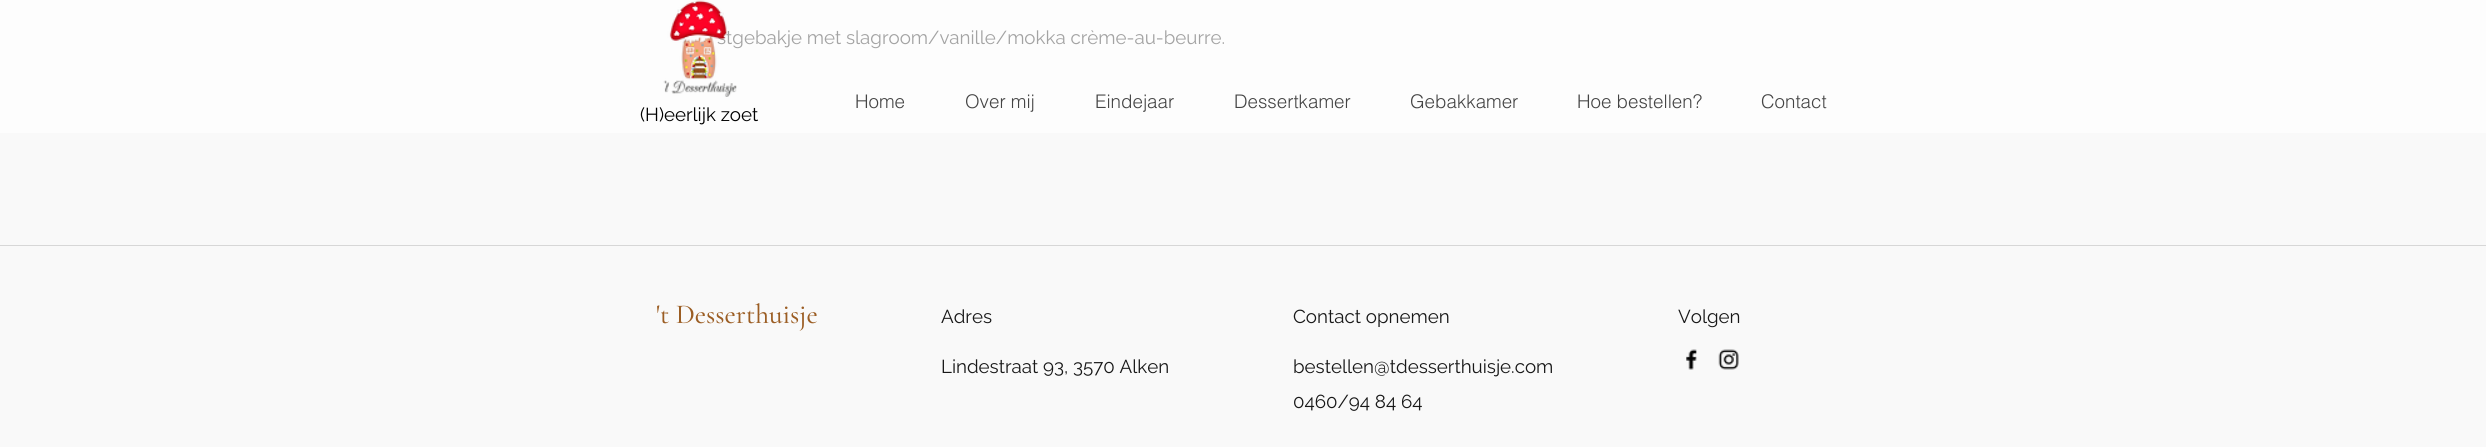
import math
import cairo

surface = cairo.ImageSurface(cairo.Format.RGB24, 2486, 447)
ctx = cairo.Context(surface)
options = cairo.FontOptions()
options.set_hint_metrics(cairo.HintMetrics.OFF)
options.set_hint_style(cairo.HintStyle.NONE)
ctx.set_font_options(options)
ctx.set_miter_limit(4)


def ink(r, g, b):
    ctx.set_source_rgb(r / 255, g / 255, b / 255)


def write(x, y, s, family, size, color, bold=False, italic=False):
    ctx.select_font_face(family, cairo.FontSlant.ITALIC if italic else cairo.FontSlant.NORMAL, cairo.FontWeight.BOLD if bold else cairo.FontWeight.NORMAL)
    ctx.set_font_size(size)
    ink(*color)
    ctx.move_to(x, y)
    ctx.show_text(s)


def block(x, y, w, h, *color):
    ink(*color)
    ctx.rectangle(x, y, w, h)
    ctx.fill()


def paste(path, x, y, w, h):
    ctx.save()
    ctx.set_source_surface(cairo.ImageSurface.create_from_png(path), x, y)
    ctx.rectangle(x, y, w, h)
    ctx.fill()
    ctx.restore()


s1 = dict(family="Raleway", size=18.75, color=(163, 163, 163))
s2 = dict(family="helvetica Light", size=18.75, color=(68, 68, 68))
s3 = dict(family="Raleway", size=18.75, color=(0, 0, 0))
s4 = dict(family="Cormorant Garamond Medium", size=27.5, color=(155, 93, 35))
s5 = dict(family="Raleway", size=18.75, color=(24, 24, 24))

ink(249, 249, 249)
ctx.paint()
block(0, 0, 2486, 133, 253, 253, 253)
write(717, 44, "stgebakje met slagroom/vanille/mokka crème-au-beurre.", **s1)
paste("pic1.png", 663, 0, 74, 97)
write(855, 108, "Home", **s2)
write(965, 108, "Over mij", **s2)
write(1095, 108, "Eindejaar", **s2)
write(1234, 108, "Dessertkamer", **s2)
write(1410, 108, "Gebakkamer", **s2)
write(1577, 108, "Hoe bestellen?", **s2)
write(1761, 108, "Contact", **s2)
write(640, 121, "(H)eerlijk zoet", **s3)
block(0, 245, 2486, 1, 215, 215, 215)
write(656, 323, "'t Desserthuisje", **s4)
write(941, 323, "Adres", **s5)
write(1293, 323, "Contact opnemen", **s5)
write(1678, 323, "Volgen", **s5)
write(941, 373, "Lindestraat 93, 3570 Alken", **s5)
write(1293, 373, "bestellen@tdesserthuisje.com", **s5)
paste("pic2.png", 1686, 349, 11, 21)
paste("pic3.png", 1718, 349, 21, 21)
write(1293, 408, "0460/94 84 64", **s5)
surface.write_to_png("screenshot.png")
